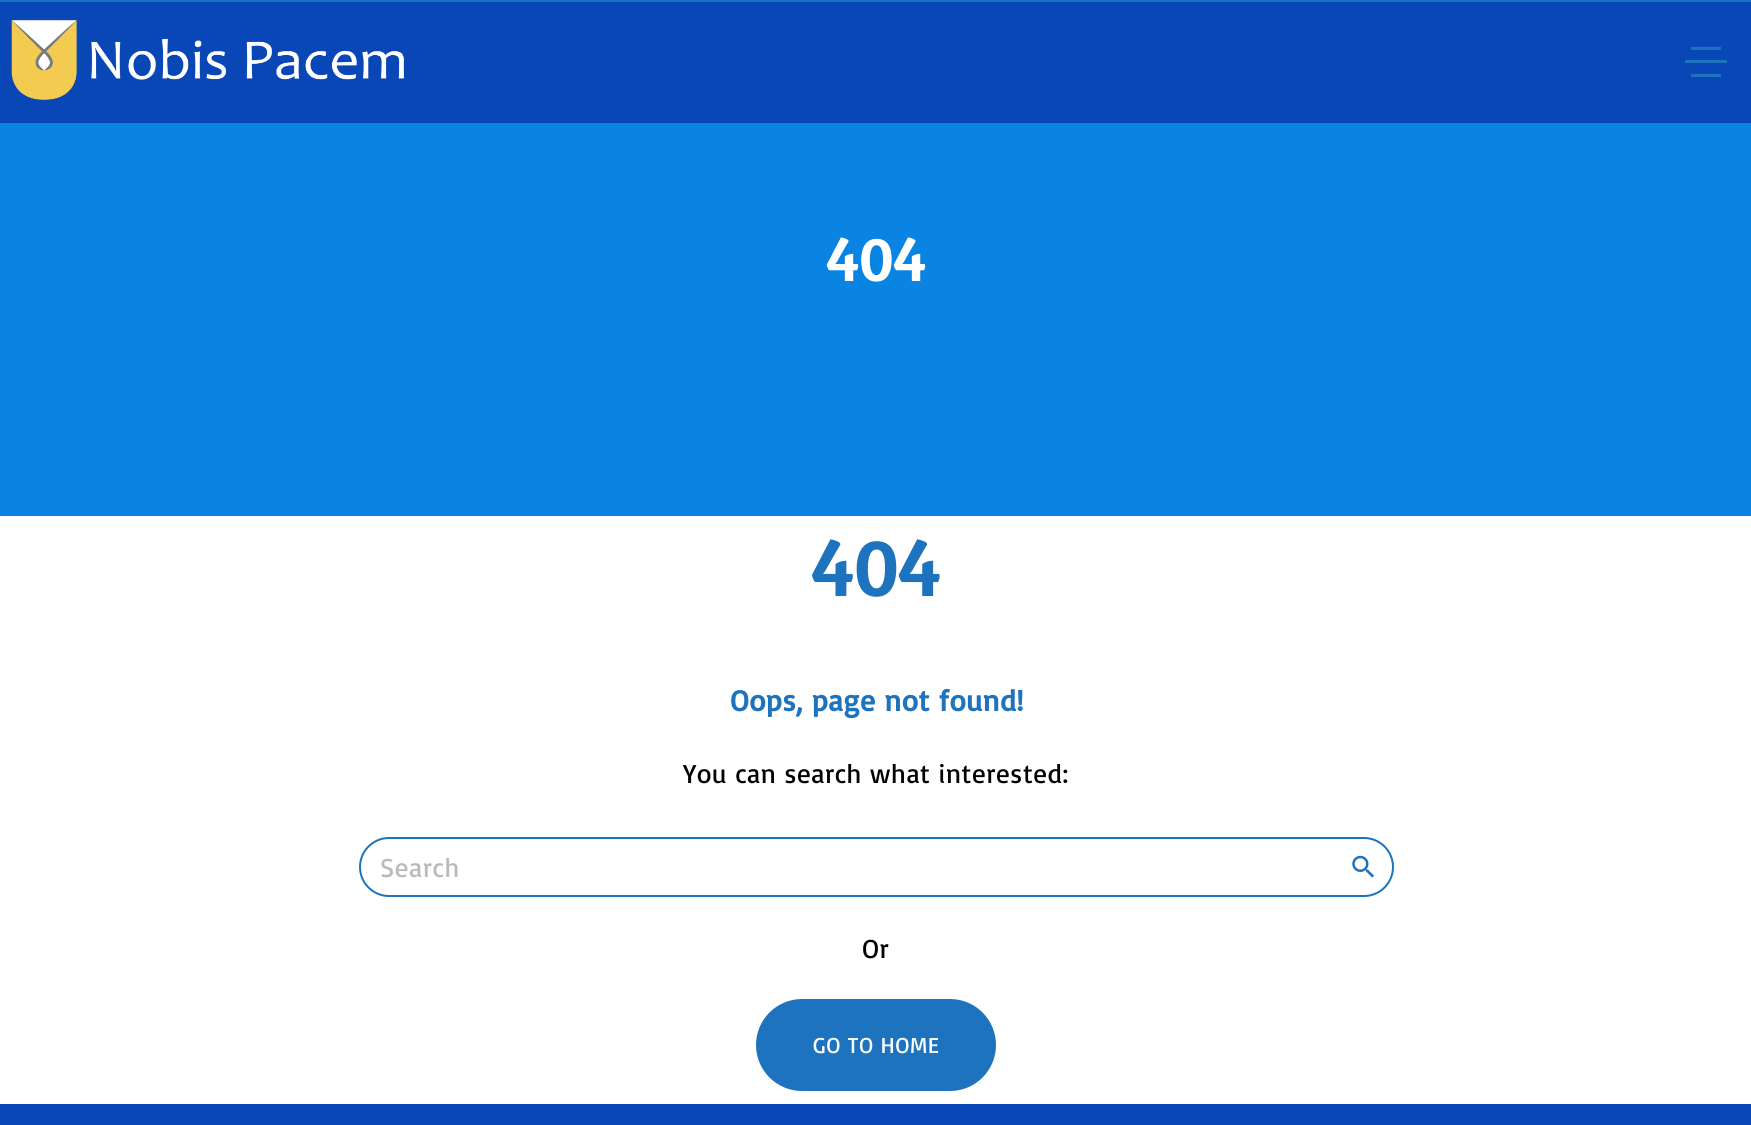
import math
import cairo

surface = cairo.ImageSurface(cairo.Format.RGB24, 1751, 1125)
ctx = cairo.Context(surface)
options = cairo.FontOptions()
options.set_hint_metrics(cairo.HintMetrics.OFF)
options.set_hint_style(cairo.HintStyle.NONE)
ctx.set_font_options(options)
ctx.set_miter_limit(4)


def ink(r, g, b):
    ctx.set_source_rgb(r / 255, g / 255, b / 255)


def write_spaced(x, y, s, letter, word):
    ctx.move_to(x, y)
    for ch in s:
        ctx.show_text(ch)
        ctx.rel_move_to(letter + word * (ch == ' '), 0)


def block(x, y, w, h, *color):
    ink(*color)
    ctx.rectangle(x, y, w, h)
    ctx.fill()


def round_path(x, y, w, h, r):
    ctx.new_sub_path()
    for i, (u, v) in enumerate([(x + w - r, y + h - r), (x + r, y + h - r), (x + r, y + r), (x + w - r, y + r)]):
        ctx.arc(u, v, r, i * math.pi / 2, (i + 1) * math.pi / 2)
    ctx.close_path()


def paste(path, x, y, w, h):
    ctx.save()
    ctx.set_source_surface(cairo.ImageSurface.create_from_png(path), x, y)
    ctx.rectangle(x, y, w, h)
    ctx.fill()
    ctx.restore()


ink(255, 255, 255)
ctx.paint()
block(0, 2, 1751, 121, 9, 71, 183)
block(0, 0, 1751, 2, 30, 115, 190)
paste("pic1.png", 11, 20, 393, 80)
block(1685, 60, 42, 3, 30, 115, 190)
block(1691, 47, 30, 3, 30, 115, 190)
block(1691, 74, 30, 3, 30, 115, 190)
block(0, 123, 1751, 393, 9, 132, 227)
ctx.select_font_face("Basic", cairo.FontSlant.NORMAL, cairo.FontWeight.BOLD)
ctx.set_font_size(60)
ink(255, 255, 255)
write_spaced(826, 281, "404", 0.55, 0)
ctx.set_font_size(78)
ink(30, 115, 190)
write_spaced(811, 596, "404", 0.55, 0)
ctx.set_font_size(29.75)
write_spaced(730, 711, "Oops, page not found!", 0.55, 0)
ctx.select_font_face("Basic")
ctx.set_font_size(27)
ink(0, 0, 0)
write_spaced(683, 783, "You can search what interested:", 0.55, 0)
round_path(360, 838, 1033, 58, 29)
ink(30, 115, 190)
ctx.stroke()
ink(186, 186, 186)
write_spaced(380, 877, "Search", 0.55, 0)
paste("pic2.png", 1352, 855, 22, 23)
ink(0, 0, 0)
write_spaced(862, 958, "Or", 0.55, 0)
ink(30, 115, 190)
round_path(756, 999, 240, 92, 46)
ctx.fill()
ctx.set_font_size(22.5)
ink(255, 255, 255)
write_spaced(813, 1053, "GO TO HOME", 0.55, 0)
block(0, 1104, 1751, 21, 9, 71, 183)
surface.write_to_png("screenshot.png")
